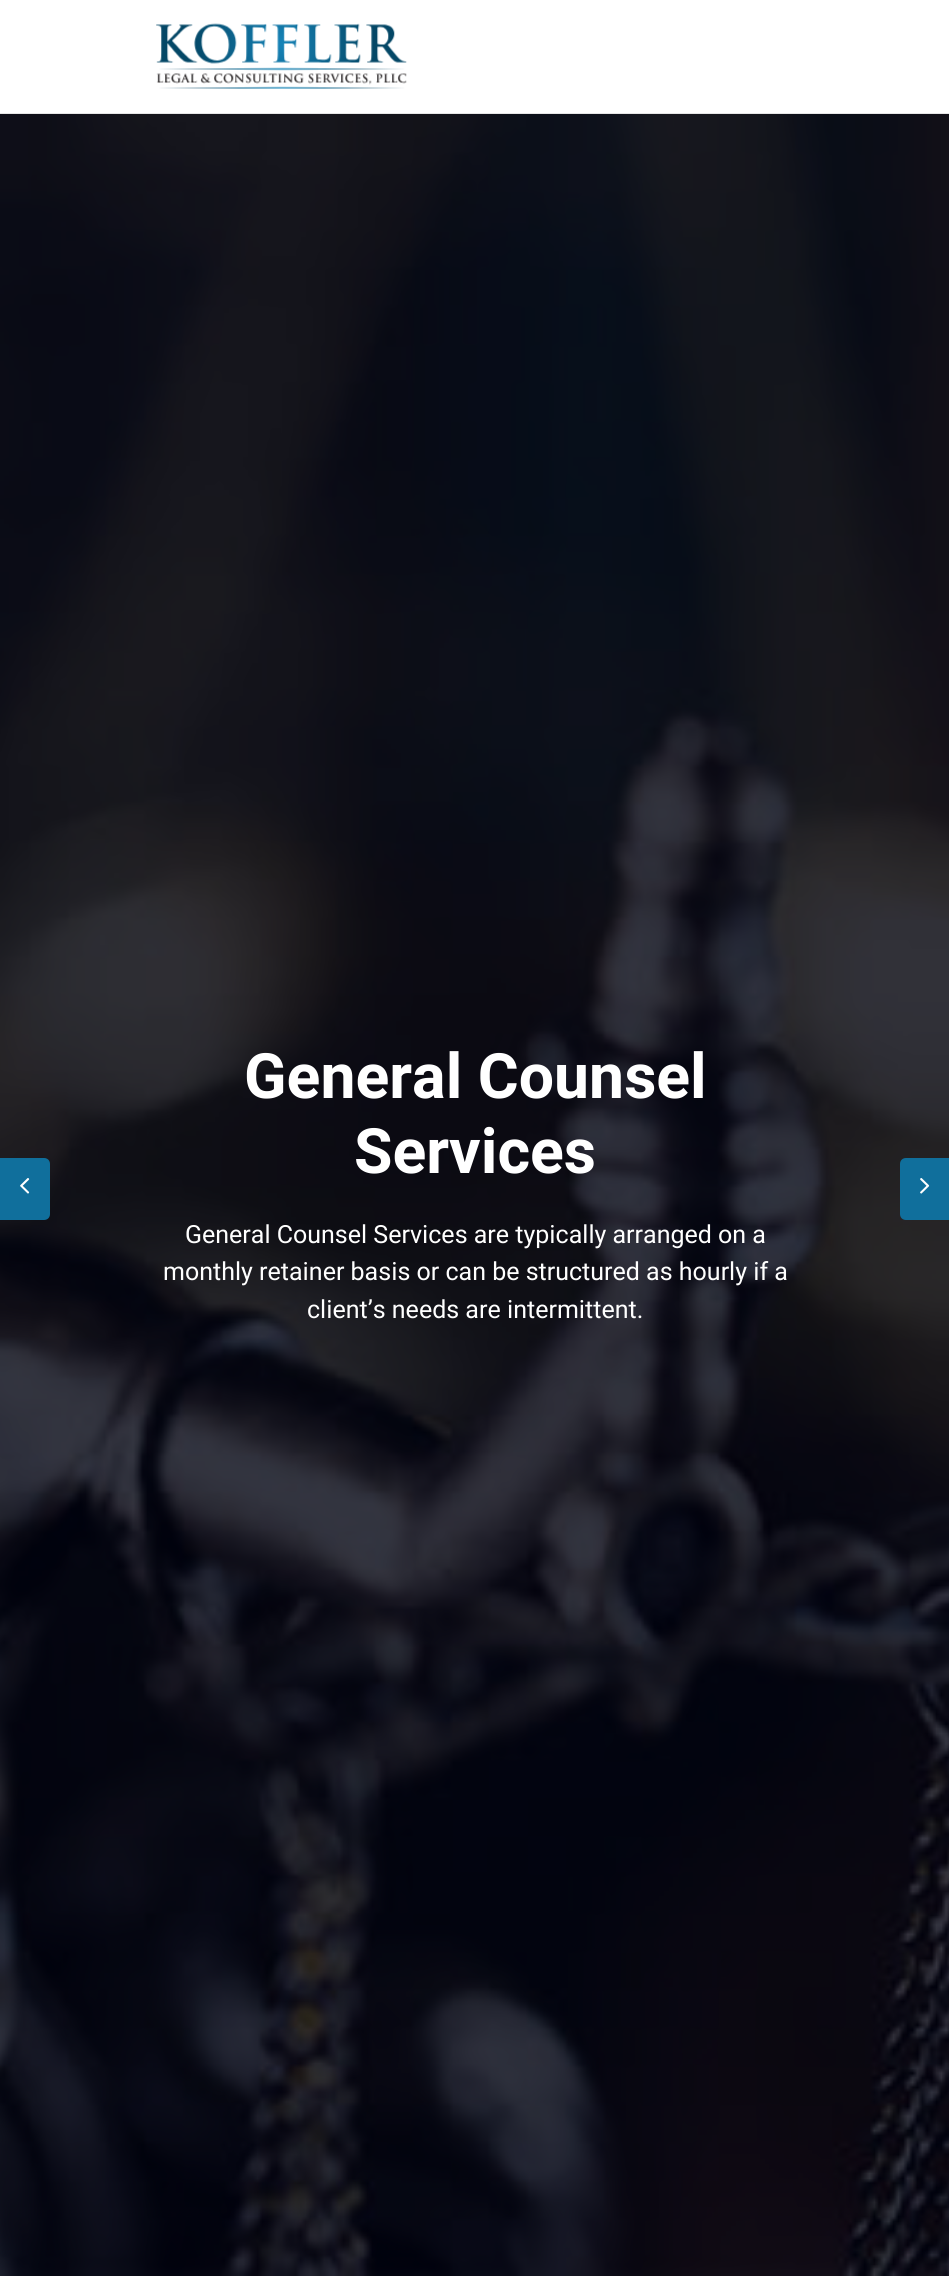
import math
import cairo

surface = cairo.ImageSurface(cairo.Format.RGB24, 949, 2276)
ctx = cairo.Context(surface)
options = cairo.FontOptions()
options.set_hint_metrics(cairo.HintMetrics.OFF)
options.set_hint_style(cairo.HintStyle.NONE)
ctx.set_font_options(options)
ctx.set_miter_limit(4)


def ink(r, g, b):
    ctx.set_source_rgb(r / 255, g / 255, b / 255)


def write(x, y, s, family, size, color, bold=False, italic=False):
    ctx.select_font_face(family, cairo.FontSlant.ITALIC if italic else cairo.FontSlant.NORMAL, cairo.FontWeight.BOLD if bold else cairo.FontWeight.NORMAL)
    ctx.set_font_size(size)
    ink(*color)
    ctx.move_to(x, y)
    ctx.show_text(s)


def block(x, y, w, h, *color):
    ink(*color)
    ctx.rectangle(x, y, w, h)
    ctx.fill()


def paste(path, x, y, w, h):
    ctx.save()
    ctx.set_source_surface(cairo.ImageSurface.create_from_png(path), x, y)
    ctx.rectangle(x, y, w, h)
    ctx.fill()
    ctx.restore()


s1 = dict(family="Heebo", size=62.5, color=(255, 255, 255), bold=True)
s2 = dict(family="Heebo", size=25, color=(255, 255, 255))

ink(255, 255, 255)
ctx.paint()
block(0, 113, 949, 1, 230, 230, 230)
paste("pic1.png", 156, 23, 251, 66)
paste("pic2.png", 0, 114, 949, 2162)
write(244, 1098, "General Counsel", **s1)
write(354, 1173, "Services", **s1)
write(185, 1243, "General Counsel Services are typically arranged on a", **s2)
write(163, 1280, "monthly retainer basis or can be structured as hourly if a", **s2)
write(307, 1318, "client’s needs are intermittent.", **s2)
ink(16, 111, 156)
ctx.new_path()
ctx.move_to(0, 1158)
ctx.line_to(44, 1158)
ctx.curve_to(47.5, 1158, 50, 1160.5, 50, 1164)
ctx.line_to(50, 1214)
ctx.curve_to(50, 1217.5, 47.5, 1220, 44, 1220)
ctx.line_to(0, 1220)
ctx.close_path()
ctx.fill()
paste("pic3.png", 20, 1178, 10, 16)
ctx.new_path()
ctx.move_to(906, 1158)
ctx.line_to(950, 1158)
ctx.line_to(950, 1220)
ctx.line_to(906, 1220)
ctx.curve_to(902.5, 1220, 900, 1217.5, 900, 1214)
ctx.line_to(900, 1164)
ctx.curve_to(900, 1160.5, 902.5, 1158, 906, 1158)
ctx.close_path()
ctx.fill()
paste("pic4.png", 920, 1178, 10, 16)
surface.write_to_png("screenshot.png")
